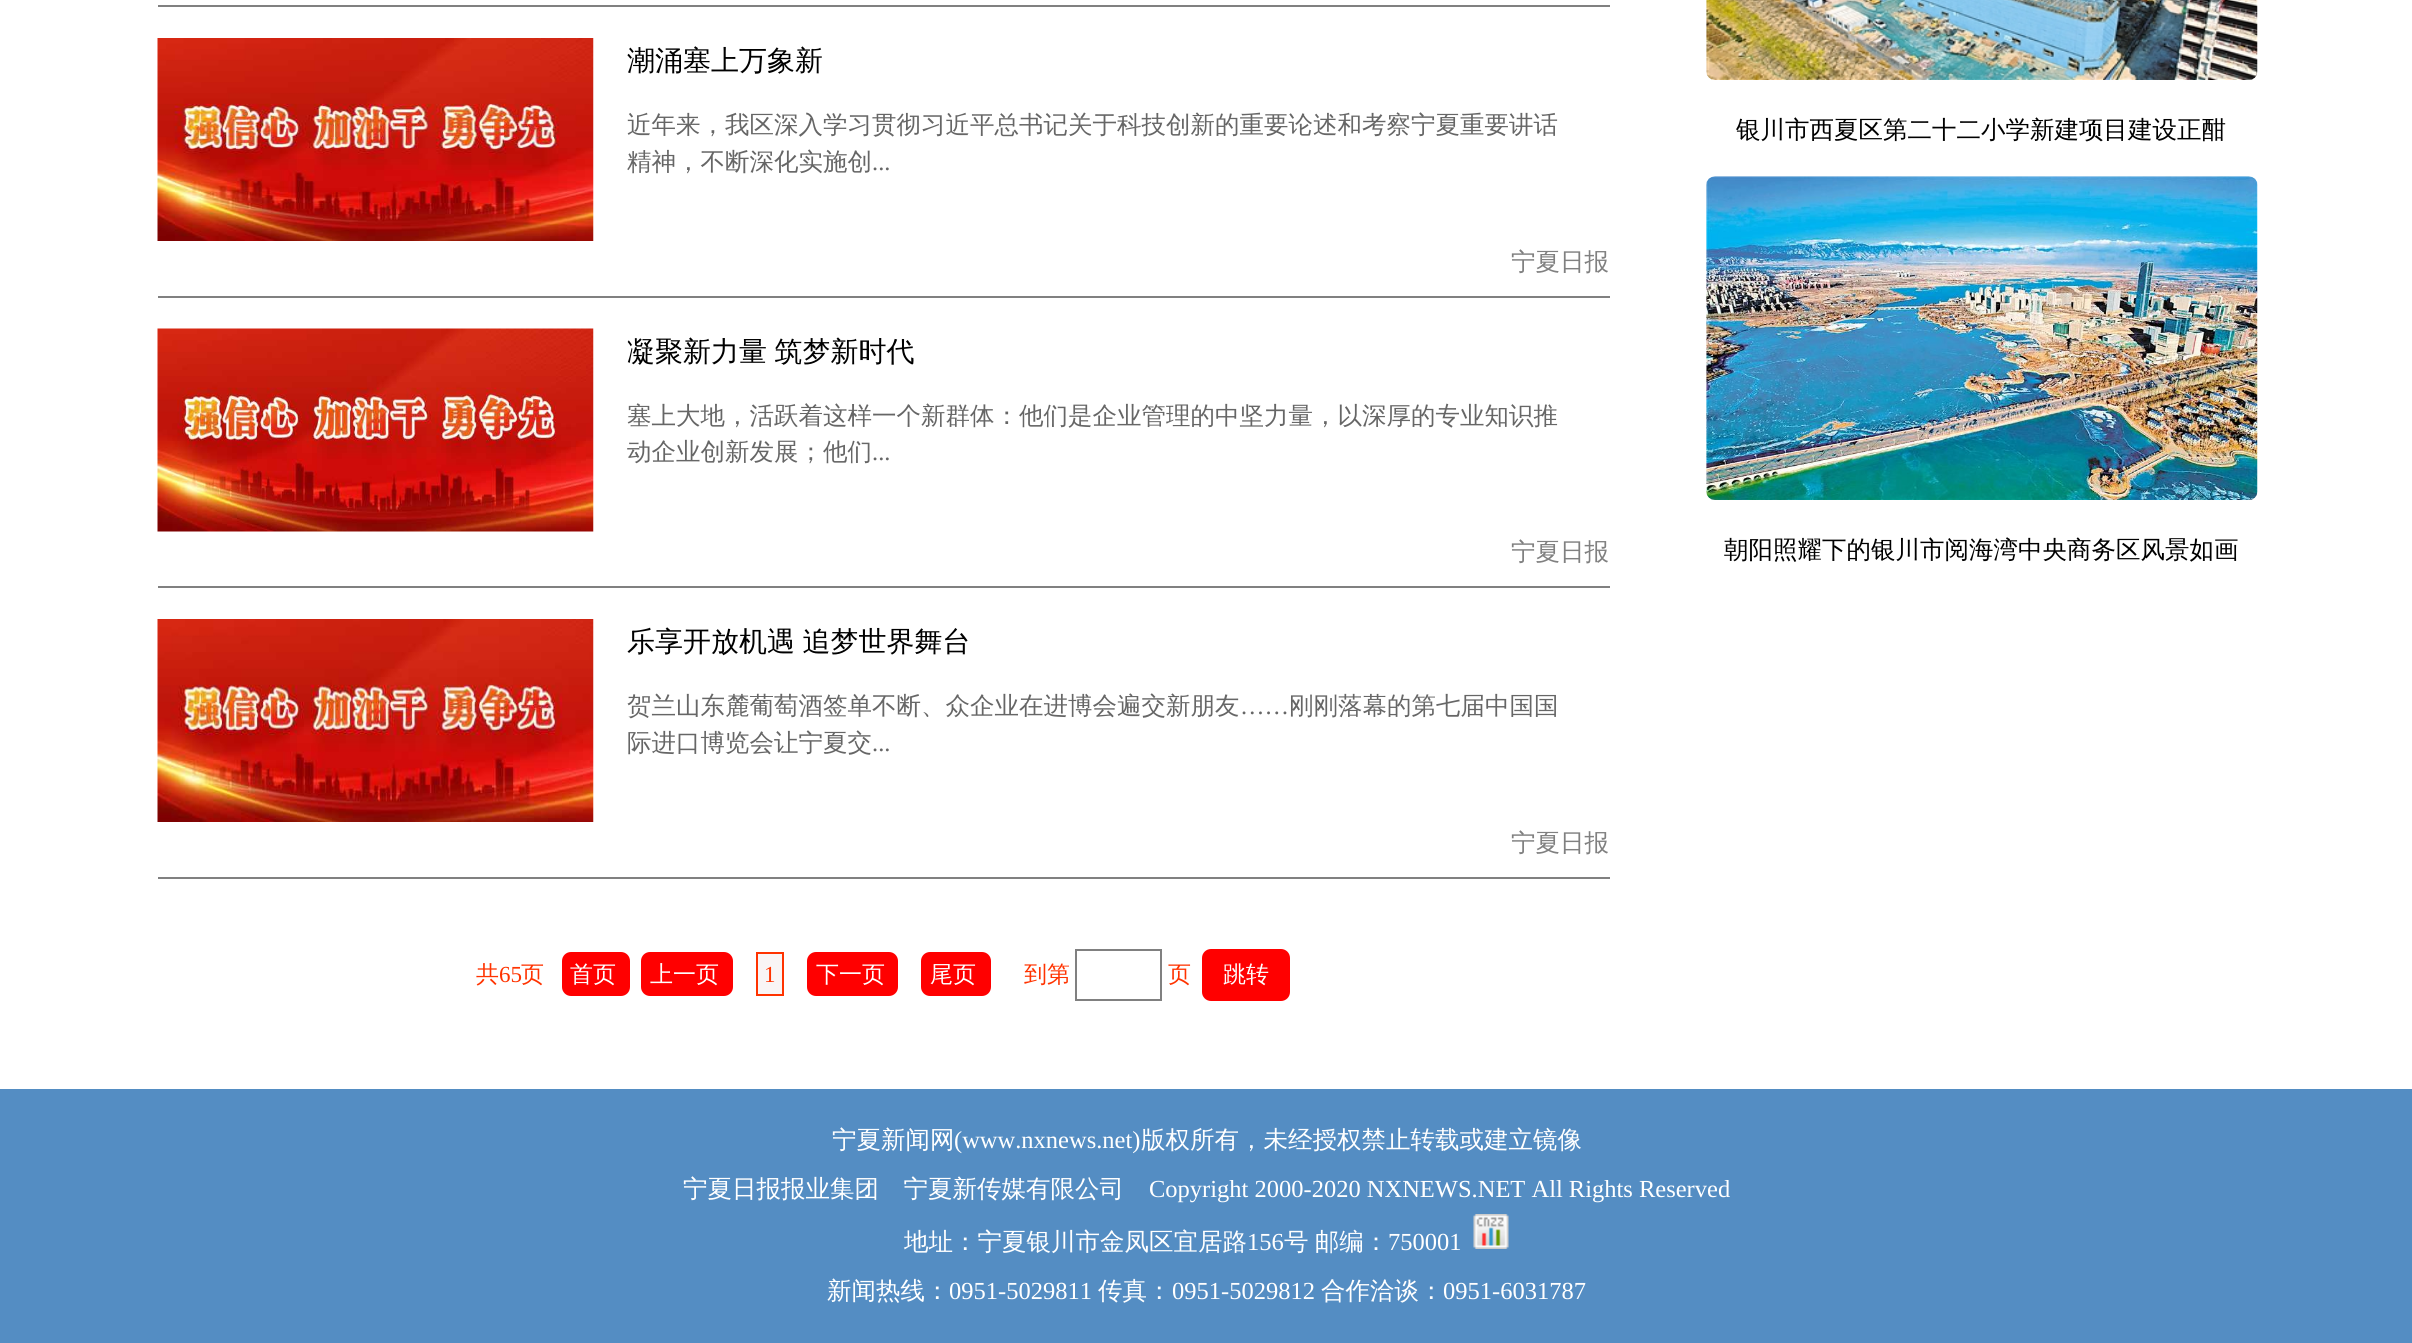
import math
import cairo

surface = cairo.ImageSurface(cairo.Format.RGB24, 2412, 1343)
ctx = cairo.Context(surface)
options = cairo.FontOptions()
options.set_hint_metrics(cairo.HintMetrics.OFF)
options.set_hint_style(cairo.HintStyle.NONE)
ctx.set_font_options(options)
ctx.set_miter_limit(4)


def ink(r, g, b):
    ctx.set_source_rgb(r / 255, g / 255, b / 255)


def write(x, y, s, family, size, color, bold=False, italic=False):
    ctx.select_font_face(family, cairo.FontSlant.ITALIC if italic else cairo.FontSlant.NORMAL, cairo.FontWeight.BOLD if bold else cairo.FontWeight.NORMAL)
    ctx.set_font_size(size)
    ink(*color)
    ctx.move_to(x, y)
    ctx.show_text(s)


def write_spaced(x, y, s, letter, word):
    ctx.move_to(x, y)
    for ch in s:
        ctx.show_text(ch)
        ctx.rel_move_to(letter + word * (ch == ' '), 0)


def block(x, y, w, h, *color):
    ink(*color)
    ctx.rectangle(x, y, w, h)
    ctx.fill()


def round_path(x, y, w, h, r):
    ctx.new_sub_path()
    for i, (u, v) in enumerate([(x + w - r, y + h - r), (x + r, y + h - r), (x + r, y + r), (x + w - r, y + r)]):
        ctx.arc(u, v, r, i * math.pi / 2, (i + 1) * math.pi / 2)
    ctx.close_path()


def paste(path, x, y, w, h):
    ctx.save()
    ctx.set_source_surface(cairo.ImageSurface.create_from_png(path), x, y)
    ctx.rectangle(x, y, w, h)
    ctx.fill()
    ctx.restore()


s1 = dict(family="WenQuanYi Zen Hei Medium", size=28, color=(0, 0, 0))
s2 = dict(family="WenQuanYi Zen Hei Medium", size=24.5, color=(102, 102, 102))
s3 = dict(family="Liberation Serif", size=24.5, color=(102, 102, 102))
s4 = dict(family="WenQuanYi Zen Hei Medium", size=24.5, color=(128, 128, 128))
s5 = dict(family="WenQuanYi Zen Hei Medium", size=23, color=(255, 51, 0))
s6 = dict(family="Liberation Serif", size=23, color=(255, 51, 0))
s7 = dict(family="WenQuanYi Zen Hei Medium", size=23, color=(255, 255, 255))
s8 = dict(family="WenQuanYi Zen Hei Medium", size=24.5, color=(0, 0, 0))
s9 = dict(family="WenQuanYi Zen Hei Medium", size=24.5, color=(255, 255, 255))
s10 = dict(family="Liberation Serif", size=24.5, color=(255, 255, 255))

ink(255, 255, 255)
ctx.paint()
block(158, 5, 1452, 2, 128, 128, 128)
block(158, 296, 1452, 2, 128, 128, 128)
paste("pic1.png", 157, 38, 437, 203)
write(627, 70, "潮涌塞上万象新", **s1)
write(627, 133, "近年来，我区深入学习贯彻习近平总书记关于科技创新的重要论述和考察宁夏重要讲话", **s2)
write(627, 170, "精神，不断深化实施创", **s2)
write(872, 170, "...", **s3)
write(1511, 270, "宁夏日报", **s4)
block(158, 586, 1452, 2, 128, 128, 128)
paste("pic2.png", 157, 328, 437, 204)
ctx.set_font_size(28)
ink(0, 0, 0)
write_spaced(627, 361, "凝聚新力量 筑梦新时代", 0, -1)
write(627, 424, "塞上大地，活跃着这样一个新群体：他们是企业管理的中坚力量，以深厚的专业知识推", **s2)
write(627, 460, "动企业创新发展；他们", **s2)
write(872, 460, "...", **s3)
write(1511, 560, "宁夏日报", **s4)
block(158, 877, 1452, 2, 128, 128, 128)
paste("pic3.png", 157, 619, 437, 203)
ctx.set_font_size(28)
ink(0, 0, 0)
write_spaced(627, 651, "乐享开放机遇 追梦世界舞台", 0, -1)
write(627, 714, "贺兰山东麓葡萄酒签单不断、众企业在进博会遍交新朋友", **s2)
write(1240, 714, "……", **s3)
write(1289, 714, "刚刚落幕的第七届中国国", **s2)
write(627, 751, "际进口博览会让宁夏交", **s2)
write(872, 751, "...", **s3)
write(1511, 851, "宁夏日报", **s4)
write(476, 982, "共", **s5)
write(499, 982, "65", **s6)
write(521, 982, "页", **s5)
ink(255, 0, 0)
round_path(562, 952, 68, 44, 9)
ctx.fill()
write(570, 982, "首页", **s7)
ink(255, 0, 0)
round_path(641, 952, 92, 44, 9)
ctx.fill()
write(650, 982, "上一页", **s7)
ink(249, 245, 245)
ctx.rectangle(757, 953, 26, 42)
ctx.fill_preserve()
ink(255, 51, 0)
ctx.stroke()
write(764, 982, "1", **s6)
ink(255, 0, 0)
round_path(807, 952, 91, 44, 9)
ctx.fill()
write(816, 982, "下一页", **s7)
ink(255, 0, 0)
round_path(921, 952, 70, 44, 9)
ctx.fill()
write(930, 982, "尾页", **s7)
write(1024, 982, "到第", **s5)
ctx.rectangle(1076, 950, 85, 50)
ink(128, 128, 128)
ctx.stroke()
write(1168, 982, "页", **s5)
ink(255, 0, 0)
round_path(1202, 949, 88, 52, 9)
ctx.fill()
write(1223, 982, "跳转", **s7)
paste("pic4.png", 1706, 0, 552, 80)
write(1736, 138, "银川市西夏区第二十二小学新建项目建设正酣", **s8)
paste("pic5.png", 1706, 176, 552, 324)
write(1724, 558, "朝阳照耀下的银川市阅海湾中央商务区风景如画", **s8)
block(0, 1089, 2412, 254, 84, 141, 195)
write(832, 1148, "宁夏新闻网", **s9)
write(954, 1148, "(www.nxnews.net)", **s10)
write(1141, 1148, "版权所有，未经授权禁止转载或建立镜像", **s9)
write(683, 1197, "宁夏日报报业集团　宁夏新传媒有限公司", **s9)
write(1149, 1197, "Copyright 2000-2020 NXNEWS.NET All Rights Reserved", **s10)
write(904, 1250, "地址：宁夏银川市金凤区宜居路", **s9)
write(1247, 1250, "156", **s10)
ctx.select_font_face("WenQuanYi Zen Hei Medium")
write_spaced(1284, 1250, "号 邮编：", 0, -1)
write(1388, 1250, "750001", **s10)
paste("pic6.png", 1473, 1214, 36, 35)
write(827, 1299, "新闻热线：", **s9)
write(949, 1299, "0951-5029811", **s10)
write(1098, 1299, "传真：", **s9)
write(1172, 1299, "0951-5029812", **s10)
write(1321, 1299, "合作洽谈：", **s9)
write(1443, 1299, "0951-6031787", **s10)
surface.write_to_png("screenshot.png")
